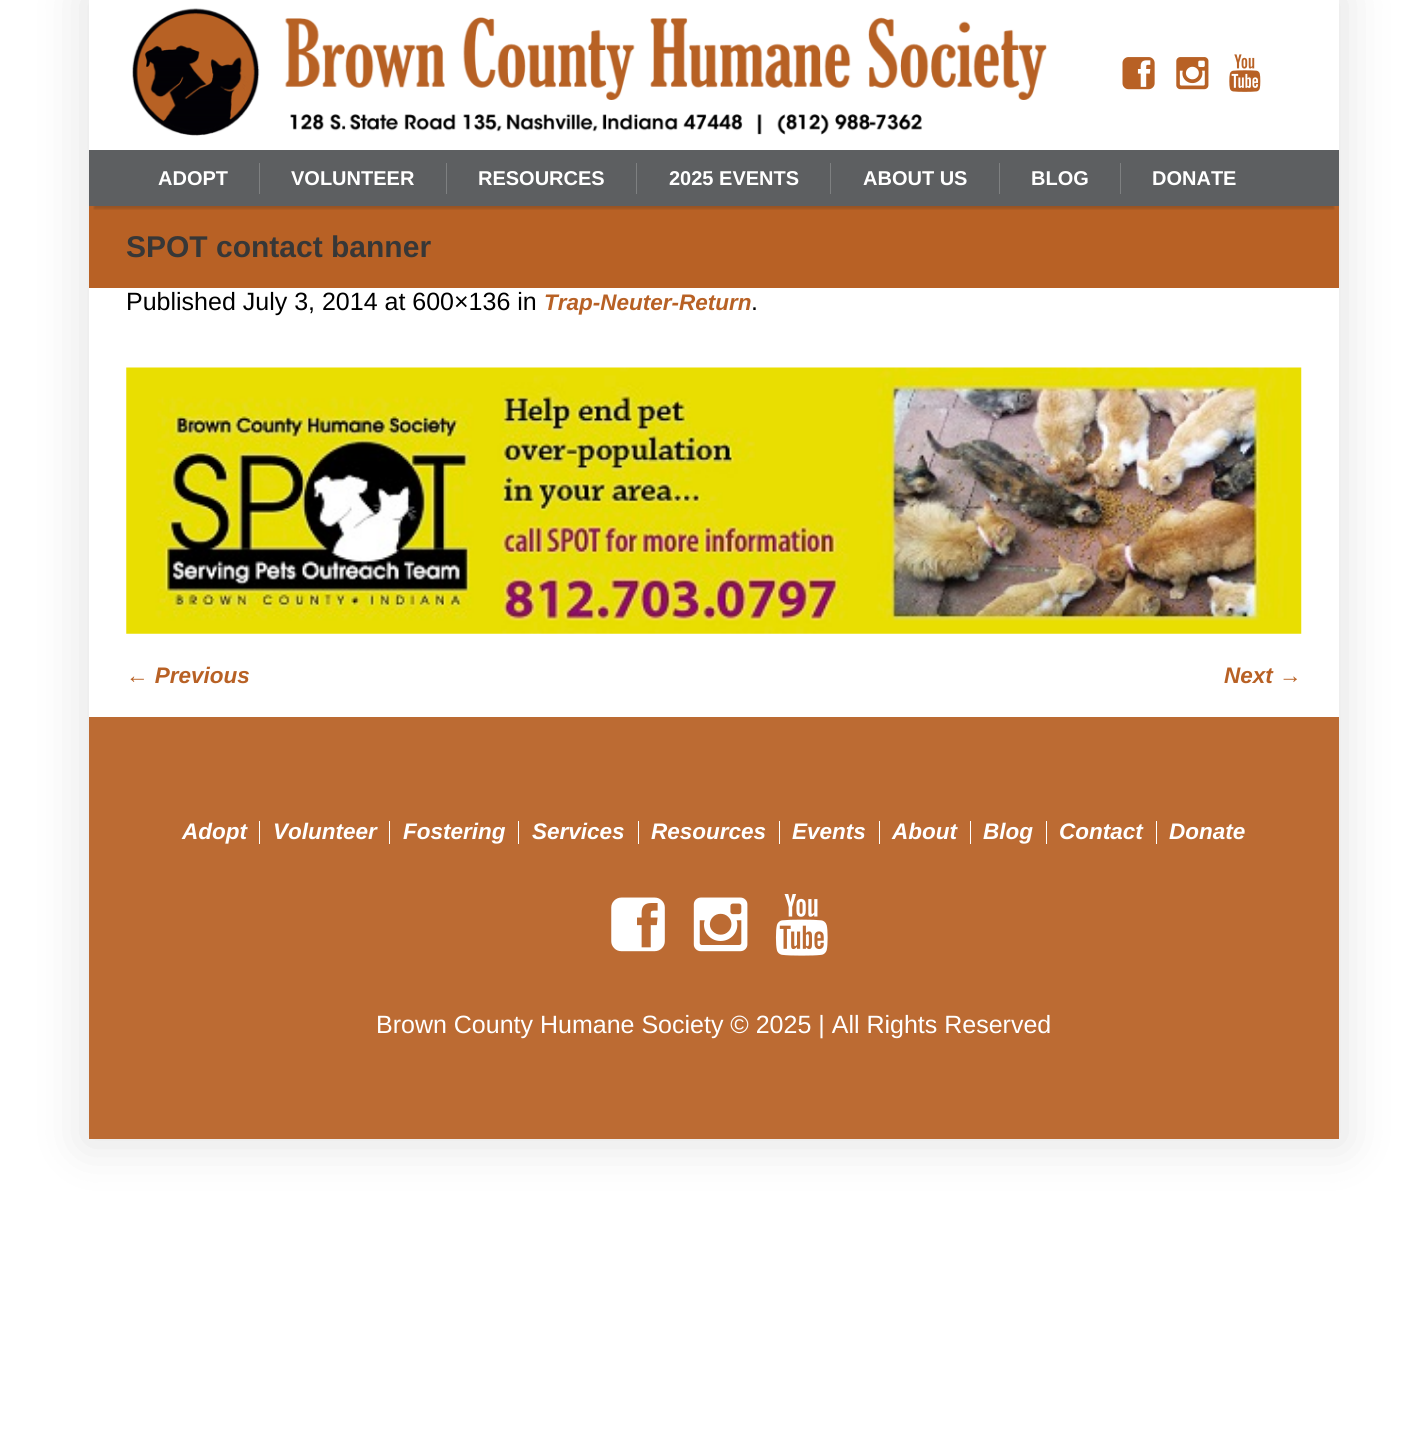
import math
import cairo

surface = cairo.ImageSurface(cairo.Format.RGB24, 1427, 1452)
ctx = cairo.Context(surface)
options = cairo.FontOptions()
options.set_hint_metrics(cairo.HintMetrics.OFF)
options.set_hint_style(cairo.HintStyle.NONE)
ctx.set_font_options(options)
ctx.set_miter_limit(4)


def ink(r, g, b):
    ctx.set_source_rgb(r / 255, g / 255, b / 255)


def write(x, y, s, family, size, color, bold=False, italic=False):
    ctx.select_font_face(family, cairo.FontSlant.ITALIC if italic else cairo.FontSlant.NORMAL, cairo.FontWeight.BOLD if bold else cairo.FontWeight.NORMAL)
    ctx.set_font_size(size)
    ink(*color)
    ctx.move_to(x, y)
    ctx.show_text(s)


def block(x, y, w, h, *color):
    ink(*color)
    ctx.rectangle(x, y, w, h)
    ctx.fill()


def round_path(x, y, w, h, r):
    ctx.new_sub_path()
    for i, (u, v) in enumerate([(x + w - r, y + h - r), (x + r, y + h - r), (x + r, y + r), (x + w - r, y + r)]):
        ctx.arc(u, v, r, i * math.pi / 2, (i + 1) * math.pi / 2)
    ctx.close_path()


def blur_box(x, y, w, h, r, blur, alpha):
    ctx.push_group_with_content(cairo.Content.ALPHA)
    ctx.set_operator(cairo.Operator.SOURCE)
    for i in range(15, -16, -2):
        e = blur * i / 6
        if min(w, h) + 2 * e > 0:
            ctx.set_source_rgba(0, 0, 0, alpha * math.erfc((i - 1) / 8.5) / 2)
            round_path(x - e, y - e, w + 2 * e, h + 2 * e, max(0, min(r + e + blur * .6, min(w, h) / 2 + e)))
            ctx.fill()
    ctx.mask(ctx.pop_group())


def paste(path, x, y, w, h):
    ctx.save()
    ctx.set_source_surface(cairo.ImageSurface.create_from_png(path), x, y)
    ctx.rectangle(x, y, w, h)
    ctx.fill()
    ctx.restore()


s1 = dict(family="Liberation Sans", size=20, color=(255, 255, 255), bold=True)
s2 = dict(family="Liberation Sans", size=30, color=(55, 55, 55), bold=True)
s3 = dict(family="Liberation Sans", size=25, color=(0, 0, 0))
s4 = dict(family="Liberation Sans", size=22.5, color=(184, 97, 37), bold=True, italic=True)
s5 = dict(family="Liberation Sans", size=22.5, color=(255, 255, 255), bold=True, italic=True)
s6 = dict(family="Liberation Sans", size=25, color=(255, 255, 255))

ink(255, 255, 255)
ctx.paint()
ctx.save()
ctx.set_fill_rule(cairo.FillRule.EVEN_ODD)
ctx.new_path()
ctx.move_to(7, 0)
ctx.line_to(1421, 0)
ctx.line_to(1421, 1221)
ctx.line_to(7, 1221)
ctx.close_path()
ctx.move_to(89, 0)
ctx.line_to(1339, 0)
ctx.line_to(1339, 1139)
ctx.line_to(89, 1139)
ctx.close_path()
ctx.clip()
ink(0, 0, 0)
blur_box(83, -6, 1262, 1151, 0, 25, 0.11)
ctx.restore()
block(89, 206, 1250, 82, 184, 97, 37)
ctx.save()
ctx.rectangle(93, 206, 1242, 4)
ctx.clip()
ink(25, 28, 30)
blur_box(94, 13, 1240, 196, 0, 1, 0.2)
ctx.restore()
ctx.set_source_rgba(1, 1, 1, 0.7)
ctx.rectangle(1338, 25, 1, 125)
ctx.fill()
paste("pic1.png", 132, 8, 915, 128)
paste("pic2.png", 1122, 57, 33, 33)
paste("pic3.png", 1176, 57, 33, 33)
paste("pic4.png", 1229, 54, 32, 38)
ctx.set_source_rgba(0.098, 0.11, 0.118, 0.7)
ctx.rectangle(89, 150, 1250, 56)
ctx.fill()
write(158, 185, "ADOPT", **s1)
block(259, 163, 1, 31, 126, 128, 129)
write(291, 185, "VOLUNTEER", **s1)
block(446, 163, 1, 31, 126, 128, 129)
write(478, 185, "RESOURCES", **s1)
block(636, 163, 1, 31, 126, 128, 129)
write(669, 185, "2025 EVENTS", **s1)
block(830, 163, 1, 31, 126, 128, 129)
write(863, 185, "ABOUT US", **s1)
block(999, 163, 1, 31, 126, 128, 129)
write(1031, 185, "BLOG", **s1)
block(1120, 163, 1, 31, 126, 128, 129)
write(1152, 185, "DONATE", **s1)
write(126, 257, "SPOT contact banner", **s2)
block(1338, 288, 1, 429, 255, 255, 255)
write(126, 310, "Published July 3, 2014 at 600×136 in", **s3)
write(544, 310, "Trap-Neuter-Return", **s4)
write(751, 310, ".", **s3)
paste("pic5.png", 126, 367, 1176, 267)
write(126, 683, "← Previous", **s4)
write(1224, 683, "Next →", **s4)
block(89, 717, 1250, 422, 188, 107, 51)
write(182, 839, "Adopt", **s5)
block(259, 821, 1, 23, 255, 255, 255)
write(273, 839, "Volunteer", **s5)
block(389, 821, 1, 23, 255, 255, 255)
write(403, 839, "Fostering", **s5)
block(518, 821, 1, 23, 255, 255, 255)
write(532, 839, "Services", **s5)
block(638, 821, 1, 23, 255, 255, 255)
write(651, 839, "Resources", **s5)
block(779, 821, 1, 23, 255, 255, 255)
write(792, 839, "Events", **s5)
block(879, 821, 1, 23, 255, 255, 255)
write(892, 839, "About", **s5)
block(970, 821, 1, 23, 255, 255, 255)
write(983, 839, "Blog", **s5)
block(1046, 821, 1, 23, 255, 255, 255)
write(1059, 839, "Contact", **s5)
block(1156, 821, 1, 23, 255, 255, 255)
write(1169, 839, "Donate", **s5)
paste("pic6.png", 611, 897, 54, 55)
paste("pic7.png", 693, 897, 55, 55)
paste("pic8.png", 775, 894, 53, 62)
write(376, 1033, "Brown County Humane Society © 2025 | All Rights Reserved", **s6)
surface.write_to_png("screenshot.png")
